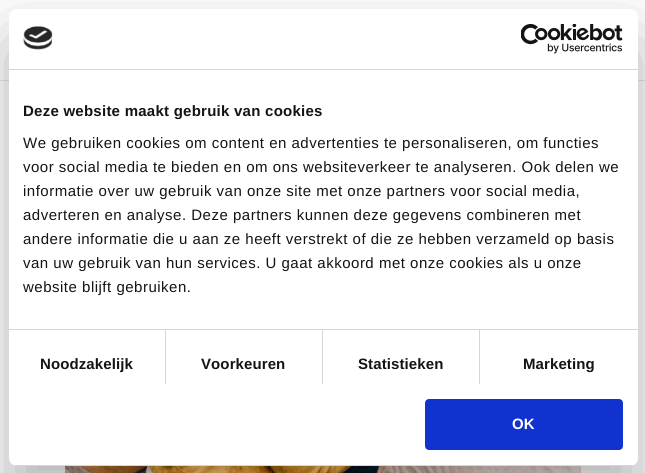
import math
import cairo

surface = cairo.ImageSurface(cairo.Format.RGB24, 645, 473)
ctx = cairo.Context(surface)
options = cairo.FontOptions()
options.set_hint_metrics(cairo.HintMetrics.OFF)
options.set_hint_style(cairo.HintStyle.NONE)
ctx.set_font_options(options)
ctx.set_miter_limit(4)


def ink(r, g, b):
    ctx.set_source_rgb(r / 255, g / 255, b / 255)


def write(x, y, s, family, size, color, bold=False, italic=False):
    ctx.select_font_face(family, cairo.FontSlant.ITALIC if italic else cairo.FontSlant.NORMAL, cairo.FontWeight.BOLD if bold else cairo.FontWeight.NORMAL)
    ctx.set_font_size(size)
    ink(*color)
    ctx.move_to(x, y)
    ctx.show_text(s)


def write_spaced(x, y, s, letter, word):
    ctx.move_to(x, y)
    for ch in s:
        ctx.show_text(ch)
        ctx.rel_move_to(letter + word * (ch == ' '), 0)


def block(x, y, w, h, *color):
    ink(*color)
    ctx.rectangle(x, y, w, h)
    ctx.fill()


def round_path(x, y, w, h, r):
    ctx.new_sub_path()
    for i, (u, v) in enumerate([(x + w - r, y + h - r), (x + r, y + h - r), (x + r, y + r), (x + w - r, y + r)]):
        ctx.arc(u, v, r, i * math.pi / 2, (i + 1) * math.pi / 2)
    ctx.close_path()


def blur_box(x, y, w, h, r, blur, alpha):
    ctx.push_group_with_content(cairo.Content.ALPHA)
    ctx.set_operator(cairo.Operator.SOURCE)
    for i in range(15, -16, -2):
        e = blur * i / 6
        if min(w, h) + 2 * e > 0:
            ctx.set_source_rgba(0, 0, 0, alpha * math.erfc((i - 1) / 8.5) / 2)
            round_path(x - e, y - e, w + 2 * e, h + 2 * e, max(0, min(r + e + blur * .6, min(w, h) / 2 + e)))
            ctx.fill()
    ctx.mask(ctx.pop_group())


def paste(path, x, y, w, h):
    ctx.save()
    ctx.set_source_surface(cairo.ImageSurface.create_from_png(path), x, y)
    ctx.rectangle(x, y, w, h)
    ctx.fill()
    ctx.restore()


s1 = dict(family="Liberation Sans", size=15, color=(255, 255, 255), bold=True)

ink(255, 255, 255)
ctx.paint()
block(0, 80, 645, 1, 230, 230, 230)
paste("pic1.png", 65, 466, 516, 7)
ink(0, 0, 0)
blur_box(9, 41, 629, 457, 8, 34, 0.3)
ink(255, 255, 255)
round_path(9, 9, 629, 457, 8)
ctx.fill()
block(9, 69, 629, 1, 214, 214, 214)
paste("pic2.png", 23, 26, 30, 24)
paste("pic3.png", 521, 24, 102, 30)
block(9, 329, 629, 1, 214, 214, 214)
ctx.select_font_face("Liberation Sans", cairo.FontSlant.NORMAL, cairo.FontWeight.BOLD)
ctx.set_font_size(15)
ink(20, 20, 20)
write_spaced(23, 116, "Deze website maakt gebruik van cookies", 0.25, 0)
ctx.select_font_face("Liberation Sans")
write_spaced(23, 148, "We gebruiken cookies om content en advertenties te personaliseren, om functies", 0.5, 0)
write_spaced(23, 172, "voor social media te bieden en om ons websiteverkeer te analyseren. Ook delen we", 0.5, 0)
write_spaced(23, 196, "informatie over uw gebruik van onze site met onze partners voor social media,", 0.5, 0)
write_spaced(23, 220, "adverteren en analyse. Deze partners kunnen deze gegevens combineren met", 0.5, 0)
write_spaced(23, 244, "andere informatie die u aan ze heeft verstrekt of die ze hebben verzameld op basis", 0.5, 0)
write_spaced(23, 268, "van uw gebruik van hun services. U gaat akkoord met onze cookies als u onze", 0.5, 0)
write_spaced(23, 292, "website blijft gebruiken.", 0.5, 0)
block(165, 330, 1, 54, 214, 214, 214)
ctx.select_font_face("Liberation Sans", cairo.FontSlant.NORMAL, cairo.FontWeight.BOLD)
ink(20, 20, 20)
write_spaced(40, 369, "Noodzakelijk", 0.1, 0)
block(322, 330, 1, 54, 214, 214, 214)
ink(20, 20, 20)
write_spaced(201, 369, "Voorkeuren", 0.1, 0)
block(479, 330, 1, 54, 214, 214, 214)
ink(20, 20, 20)
write_spaced(358, 369, "Statistieken", 0.1, 0)
write_spaced(523, 369, "Marketing", 0.1, 0)
ctx.save()
round_path(9, 9, 629, 457, 8)
ctx.clip()
block(9, 465, 629, 1, 214, 214, 214)
ctx.restore()
ink(16, 50, 207)
round_path(426, 400, 196, 49, 3)
ctx.fill_preserve()
ctx.stroke()
write(512, 429, "OK", **s1)
surface.write_to_png("screenshot.png")
